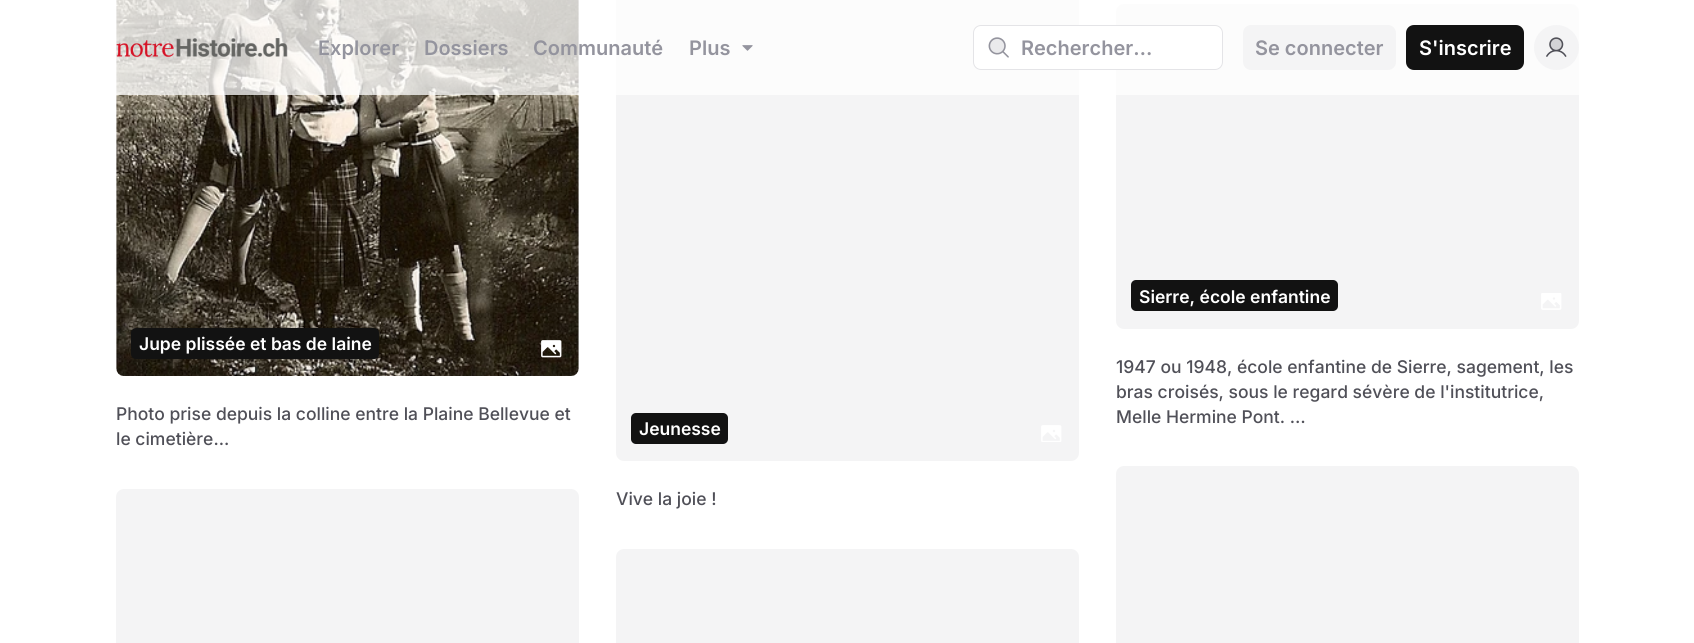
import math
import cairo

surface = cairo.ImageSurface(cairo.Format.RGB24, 1694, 643)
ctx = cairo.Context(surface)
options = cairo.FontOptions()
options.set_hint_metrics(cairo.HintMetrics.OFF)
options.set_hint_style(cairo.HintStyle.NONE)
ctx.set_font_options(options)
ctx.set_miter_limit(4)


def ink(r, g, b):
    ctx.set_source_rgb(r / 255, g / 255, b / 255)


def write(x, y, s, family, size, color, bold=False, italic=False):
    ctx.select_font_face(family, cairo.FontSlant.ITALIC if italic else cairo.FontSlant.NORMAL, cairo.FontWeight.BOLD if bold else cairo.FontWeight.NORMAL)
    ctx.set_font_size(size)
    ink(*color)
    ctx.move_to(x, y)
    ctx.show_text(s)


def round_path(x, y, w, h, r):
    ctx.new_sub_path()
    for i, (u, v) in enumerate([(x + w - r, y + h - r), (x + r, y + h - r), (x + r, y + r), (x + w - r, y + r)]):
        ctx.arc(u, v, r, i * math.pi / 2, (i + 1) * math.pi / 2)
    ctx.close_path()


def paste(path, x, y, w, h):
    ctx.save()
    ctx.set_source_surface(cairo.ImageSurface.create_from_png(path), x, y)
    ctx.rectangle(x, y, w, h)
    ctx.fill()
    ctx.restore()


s1 = dict(family="Inter SemiBold", size=20, color=(148, 148, 158))
s2 = dict(family="Inter SemiBold", size=20, color=(255, 255, 255))
s3 = dict(family="Inter SemiBold", size=17.5, color=(255, 255, 255))
s4 = dict(family="Inter Medium", size=17.5, color=(80, 80, 88))

ink(255, 255, 255)
ctx.paint()
ink(244, 244, 245)
round_path(116, -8, 463, 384, 8)
ctx.fill()
paste("pic5.png", 116, 0, 463, 376)
round_path(1116, 4, 463, 325, 8)
ctx.fill()
round_path(616, -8, 463, 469, 8)
ctx.fill()
ctx.set_source_rgba(1, 1, 1, 0.75)
ctx.rectangle(116, 0, 1463, 95)
ctx.fill()
paste("pic1.png", 116, 38, 172, 20)
write(318, 55, "Explorer", **s1)
write(424, 55, "Dossiers", **s1)
write(533, 55, "Communauté", **s1)
write(689, 55, "Plus", **s1)
paste("pic2.png", 742, 45, 11, 6)
ink(255, 255, 255)
round_path(973.5, 25.5, 249, 44, 7.5)
ctx.fill_preserve()
ink(228, 228, 231)
ctx.set_line_width(1)
ctx.stroke()
paste("pic3.png", 988, 37, 21, 21)
write(1021, 55, "Rechercher…", **s1)
ink(244, 244, 245)
round_path(1243, 25, 153, 45, 8)
ctx.fill()
write(1255, 55, "Se connecter", **s1)
ink(18, 18, 18)
round_path(1406, 25, 118, 45, 8)
ctx.fill()
write(1419, 55, "S'inscrire", **s2)
ink(244, 244, 245)
ctx.new_path()
ctx.arc(1556.5, 47.5, 22.5, 0, 2 * math.pi)
ctx.fill()
paste("pic4.png", 1546, 37, 21, 20)
ink(18, 18, 18)
round_path(131, 328, 248, 31, 5)
ctx.fill()
write(139, 350, "Jupe plissée et bas de laine", **s3)
paste("pic6.png", 541, 340, 21, 18)
write(116, 420, "Photo prise depuis la colline entre la Plaine Bellevue et", **s4)
write(116, 445, "le cimetière...", **s4)
ink(244, 244, 245)
round_path(116, 489, 463, 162, 8)
ctx.fill()
ink(18, 18, 18)
round_path(1131, 280, 207, 31, 5)
ctx.fill()
write(1139, 303, "Sierre, école enfantine", **s3)
paste("pic7.png", 1541, 293, 21, 17)
write(1116, 373, "1947 ou 1948, école enfantine de Sierre, sagement, les", **s4)
write(1116, 398, "bras croisés, sous le regard sévère de l'institutrice,", **s4)
write(1116, 423, "Melle Hermine Pont. …", **s4)
ink(244, 244, 245)
round_path(1116, 466, 463, 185, 8)
ctx.fill()
ink(18, 18, 18)
round_path(631, 413, 97, 31, 5)
ctx.fill()
write(639, 435, "Jeunesse", **s3)
paste("pic8.png", 1041, 425, 21, 17)
write(616, 505, "Vive la joie !", **s4)
ink(244, 244, 245)
round_path(616, 549, 463, 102, 8)
ctx.fill()
surface.write_to_png("screenshot.png")
